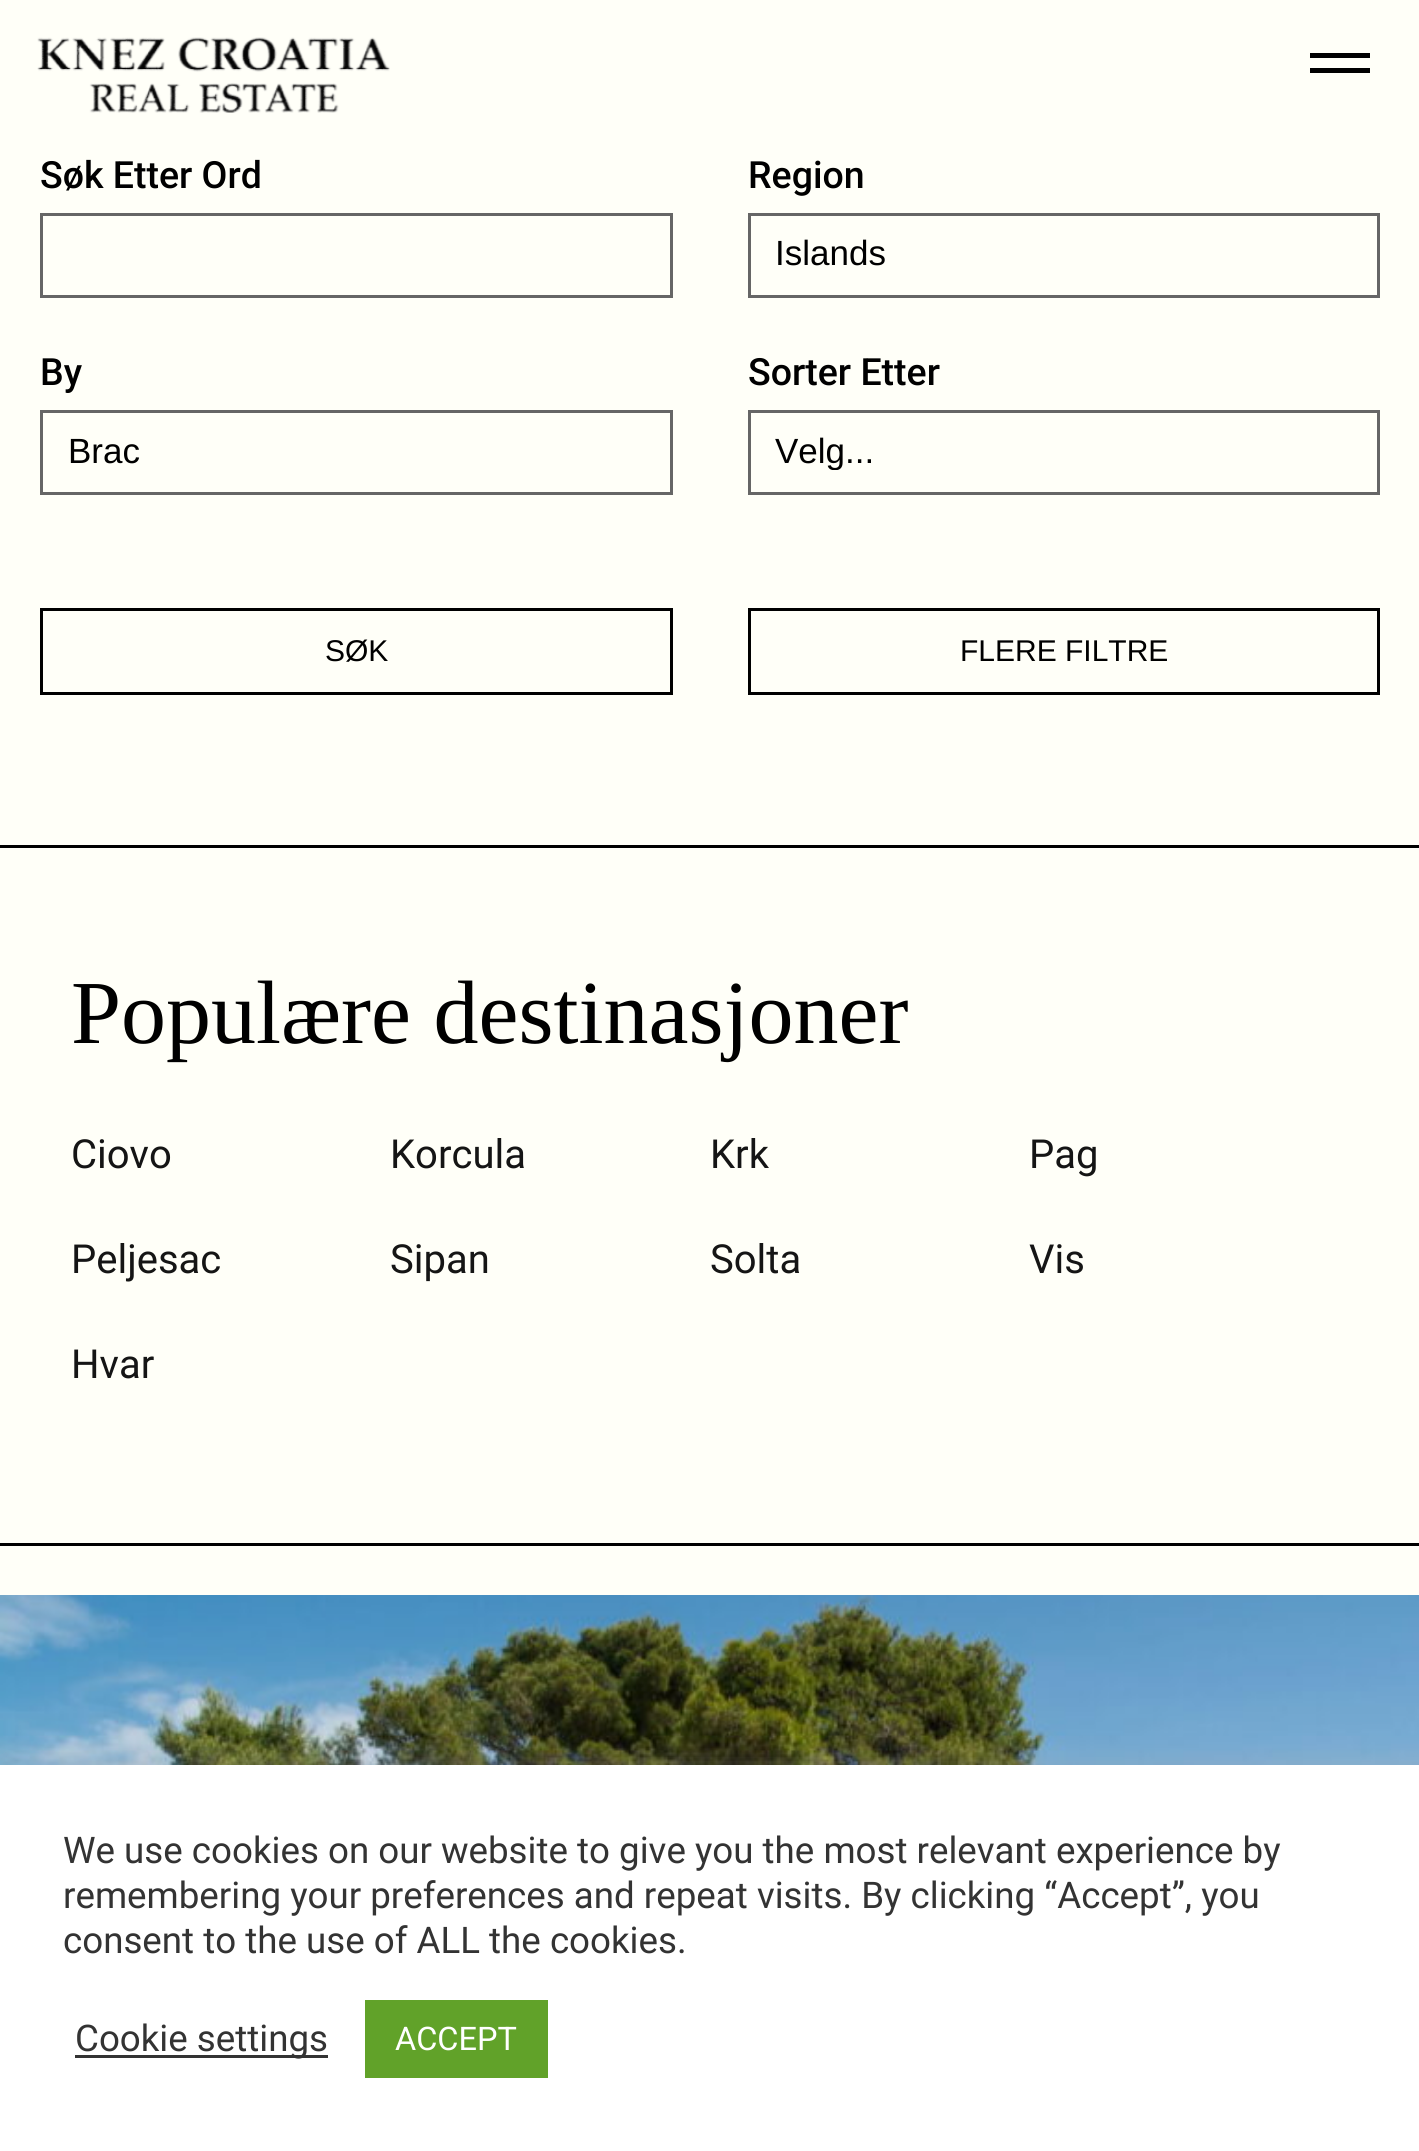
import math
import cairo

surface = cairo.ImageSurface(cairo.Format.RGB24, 1419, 2151)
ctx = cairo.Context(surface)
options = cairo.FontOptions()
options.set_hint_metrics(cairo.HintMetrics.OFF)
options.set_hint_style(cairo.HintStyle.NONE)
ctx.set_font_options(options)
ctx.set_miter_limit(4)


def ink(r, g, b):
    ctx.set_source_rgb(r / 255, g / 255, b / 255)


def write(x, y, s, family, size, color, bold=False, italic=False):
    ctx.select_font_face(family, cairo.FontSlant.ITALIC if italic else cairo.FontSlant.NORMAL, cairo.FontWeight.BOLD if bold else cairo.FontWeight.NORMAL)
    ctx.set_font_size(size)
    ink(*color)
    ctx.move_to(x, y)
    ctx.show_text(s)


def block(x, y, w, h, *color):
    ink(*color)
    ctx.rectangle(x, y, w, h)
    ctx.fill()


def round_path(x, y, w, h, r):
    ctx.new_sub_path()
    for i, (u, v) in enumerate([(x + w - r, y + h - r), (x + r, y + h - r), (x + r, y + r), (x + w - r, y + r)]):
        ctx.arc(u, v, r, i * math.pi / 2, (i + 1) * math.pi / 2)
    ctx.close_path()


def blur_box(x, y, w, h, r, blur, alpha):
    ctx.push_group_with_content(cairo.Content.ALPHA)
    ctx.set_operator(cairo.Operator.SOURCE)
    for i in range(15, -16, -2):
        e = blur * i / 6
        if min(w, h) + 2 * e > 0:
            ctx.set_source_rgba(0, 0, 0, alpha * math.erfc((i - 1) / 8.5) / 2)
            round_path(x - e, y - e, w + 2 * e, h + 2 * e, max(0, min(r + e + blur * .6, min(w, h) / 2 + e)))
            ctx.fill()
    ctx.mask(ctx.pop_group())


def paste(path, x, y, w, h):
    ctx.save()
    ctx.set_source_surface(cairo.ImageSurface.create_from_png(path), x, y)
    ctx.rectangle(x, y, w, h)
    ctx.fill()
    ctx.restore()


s1 = dict(family="Roboto Medium", size=37.5, color=(0, 0, 0))
s2 = dict(family="Liberation Sans", size=35, color=(0, 0, 0))
s3 = dict(family="Liberation Sans", size=30, color=(0, 0, 0))
s4 = dict(family="Liberation Serif", size=90, color=(0, 0, 0))
s5 = dict(family="Roboto", size=40, color=(21, 21, 21))
s6 = dict(family="Roboto", size=36.7, color=(51, 51, 51))
s7 = dict(family="Roboto", size=32.5, color=(255, 255, 255))

ink(255, 255, 248)
ctx.paint()
paste("pic1.png", 37, 37, 353, 76)
block(1310, 53, 60, 5, 0, 0, 0)
block(1310, 68, 60, 5, 0, 0, 0)
write(40, 188, "Søk Etter Ord", **s1)
ctx.rectangle(41.5, 214.5, 630, 82)
ink(102, 102, 102)
ctx.set_line_width(3)
ctx.stroke()
write(748, 188, "Region", **s1)
ctx.rectangle(749.5, 214.5, 629, 82)
ink(102, 102, 102)
ctx.stroke()
write(775, 265, "Islands", **s2)
write(40, 385, "By", **s1)
ctx.rectangle(41.5, 411.5, 630, 82)
ink(102, 102, 102)
ctx.stroke()
write(68, 463, "Brac", **s2)
write(748, 385, "Sorter Etter", **s1)
ctx.rectangle(749.5, 411.5, 629, 82)
ink(102, 102, 102)
ctx.stroke()
ctx.save()
ctx.rectangle(775, 430, 578, 40)
ctx.clip()
write(775, 463, "Velg...", **s2)
ctx.restore()
ctx.rectangle(41.5, 609.5, 630, 84)
ink(0, 0, 0)
ctx.stroke()
write(325, 661, "SØK", **s3)
ctx.rectangle(749.5, 609.5, 629, 84)
ctx.stroke()
write(960, 661, "FLERE FILTRE", **s3)
block(0, 845, 1419, 3, 0, 0, 0)
block(0, 1543, 1419, 3, 0, 0, 0)
write(71, 1043, "Populære destinasjoner", **s4)
write(71, 1168, "Ciovo", **s5)
write(390, 1168, "Korcula", **s5)
write(710, 1168, "Krk", **s5)
write(1029, 1168, "Pag", **s5)
write(71, 1273, "Peljesac", **s5)
write(390, 1273, "Sipan", **s5)
write(710, 1273, "Solta", **s5)
write(1029, 1273, "Vis", **s5)
write(71, 1378, "Hvar", **s5)
paste("pic2.png", 0, 1595, 1419, 170)
ink(172, 171, 171)
blur_box(0, 1763, 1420, 387, 0, 12.5, 0.3)
block(0, 1765, 1419, 386, 255, 255, 255)
write(63, 1863, "We use cookies on our website to give you the most relevant experience by", **s6)
write(63, 1908, "remembering your preferences and repeat visits. By clicking “Accept”, you", **s6)
write(63, 1953, "consent to the use of ALL the cookies.", **s6)
block(75, 2055, 253, 3, 51, 51, 51)
write(75, 2051, "Cookie settings", **s6)
block(365, 2000, 183, 78, 97, 162, 41)
write(395, 2050, "ACCEPT", **s7)
surface.write_to_png("screenshot.png")
